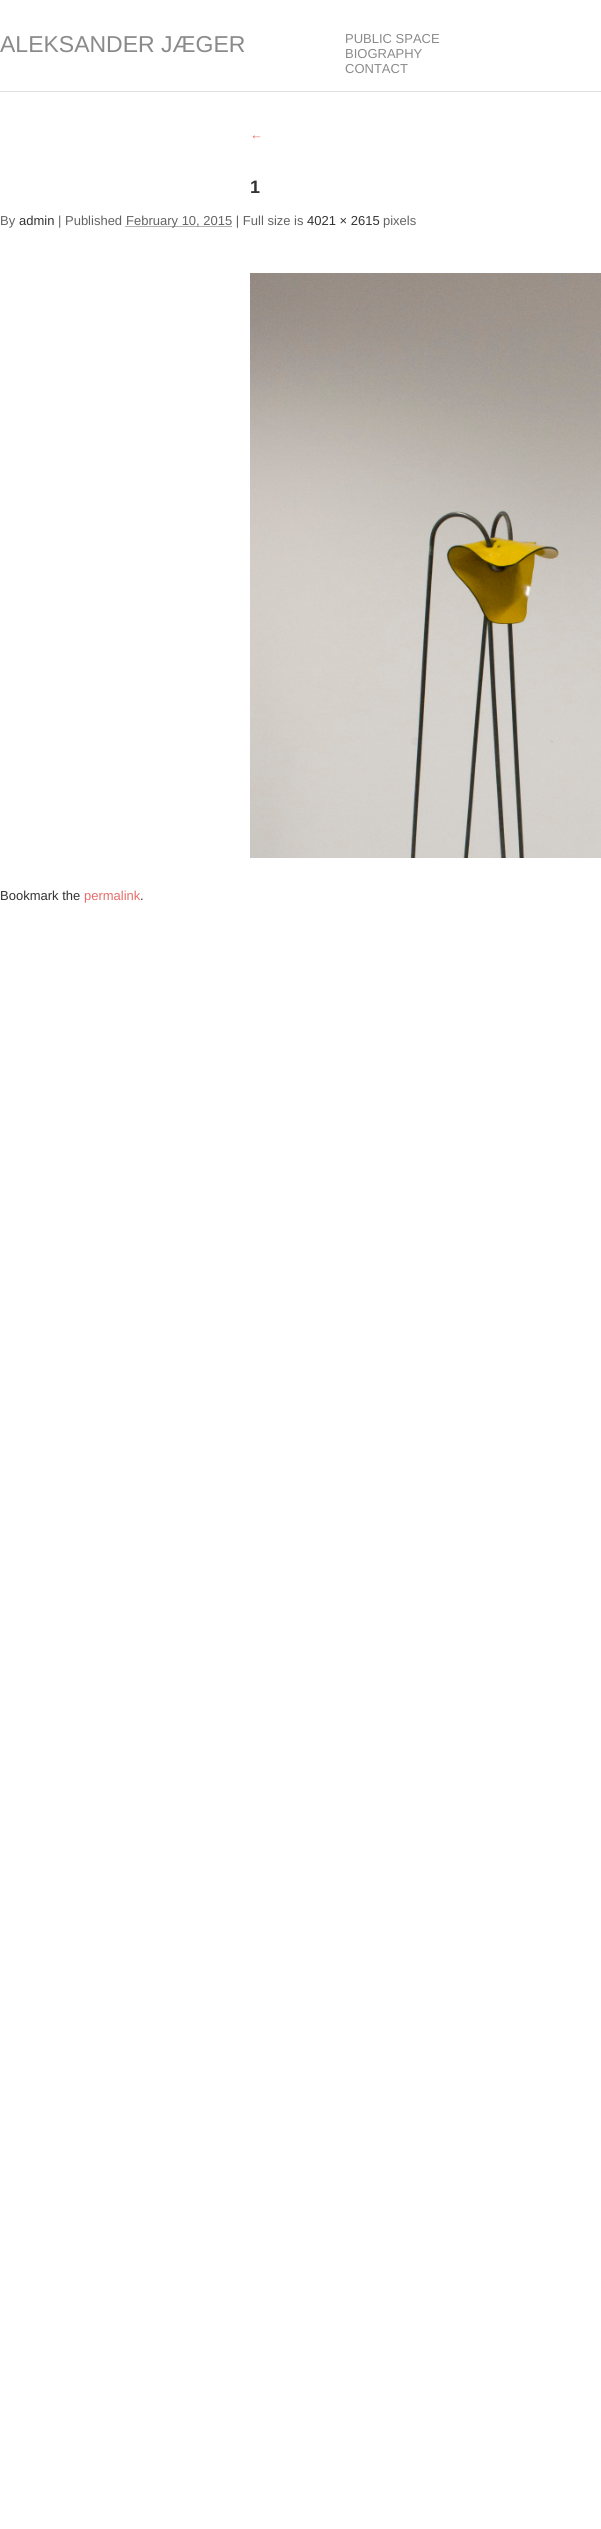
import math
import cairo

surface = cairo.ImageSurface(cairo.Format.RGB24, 601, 2529)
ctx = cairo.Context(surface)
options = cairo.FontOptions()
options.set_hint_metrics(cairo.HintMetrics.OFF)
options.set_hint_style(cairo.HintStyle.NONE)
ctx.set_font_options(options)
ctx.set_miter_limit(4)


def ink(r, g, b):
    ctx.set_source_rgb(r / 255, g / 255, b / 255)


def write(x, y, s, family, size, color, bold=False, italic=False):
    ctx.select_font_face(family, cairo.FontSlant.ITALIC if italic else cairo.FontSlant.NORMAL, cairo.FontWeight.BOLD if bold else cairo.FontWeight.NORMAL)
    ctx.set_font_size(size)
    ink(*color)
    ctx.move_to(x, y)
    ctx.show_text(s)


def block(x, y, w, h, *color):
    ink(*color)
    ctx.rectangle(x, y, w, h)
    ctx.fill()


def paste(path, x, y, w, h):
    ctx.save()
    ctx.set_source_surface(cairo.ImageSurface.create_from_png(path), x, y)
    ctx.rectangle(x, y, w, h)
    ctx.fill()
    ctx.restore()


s1 = dict(family="Liberation Sans", size=23, color=(138, 138, 138))
s2 = dict(family="Liberation Sans", size=13, color=(138, 138, 138))
s3 = dict(family="Liberation Sans", size=13, color=(232, 108, 107))
s4 = dict(family="Liberation Sans", size=18, color=(51, 51, 51), bold=True)
s5 = dict(family="Liberation Sans", size=13, color=(99, 99, 99))
s6 = dict(family="Liberation Sans", size=13, color=(51, 51, 51))

ink(255, 255, 255)
ctx.paint()
block(0, 91, 601, 1, 222, 223, 224)
write(0, 52, "ALEKSANDER JÆGER", **s1)
write(345, 43, "PUBLIC SPACE", **s2)
write(345, 58, "BIOGRAPHY", **s2)
write(345, 73, "CONTACT", **s2)
write(250, 139, "←", **s3)
write(250, 193, "1", **s4)
write(0, 225, "By", **s5)
write(19, 225, "admin", **s6)
write(58, 225, "| Published", **s5)
ctx.new_path()
ctx.move_to(125.5, 226.5)
ctx.line_to(232, 226.5)
ctx.set_line_width(1)
ctx.set_dash([1, 1])
ctx.stroke()
write(126, 225, "February 10, 2015 | Full size is", **s5)
write(307, 225, "4021 × 2615", **s6)
write(383, 225, "pixels", **s5)
paste("pic1.png", 250, 273, 351, 585)
write(0, 900, "Bookmark the", **s6)
write(84, 900, "permalink", **s3)
write(140, 900, ".", **s6)
surface.write_to_png("screenshot.png")
